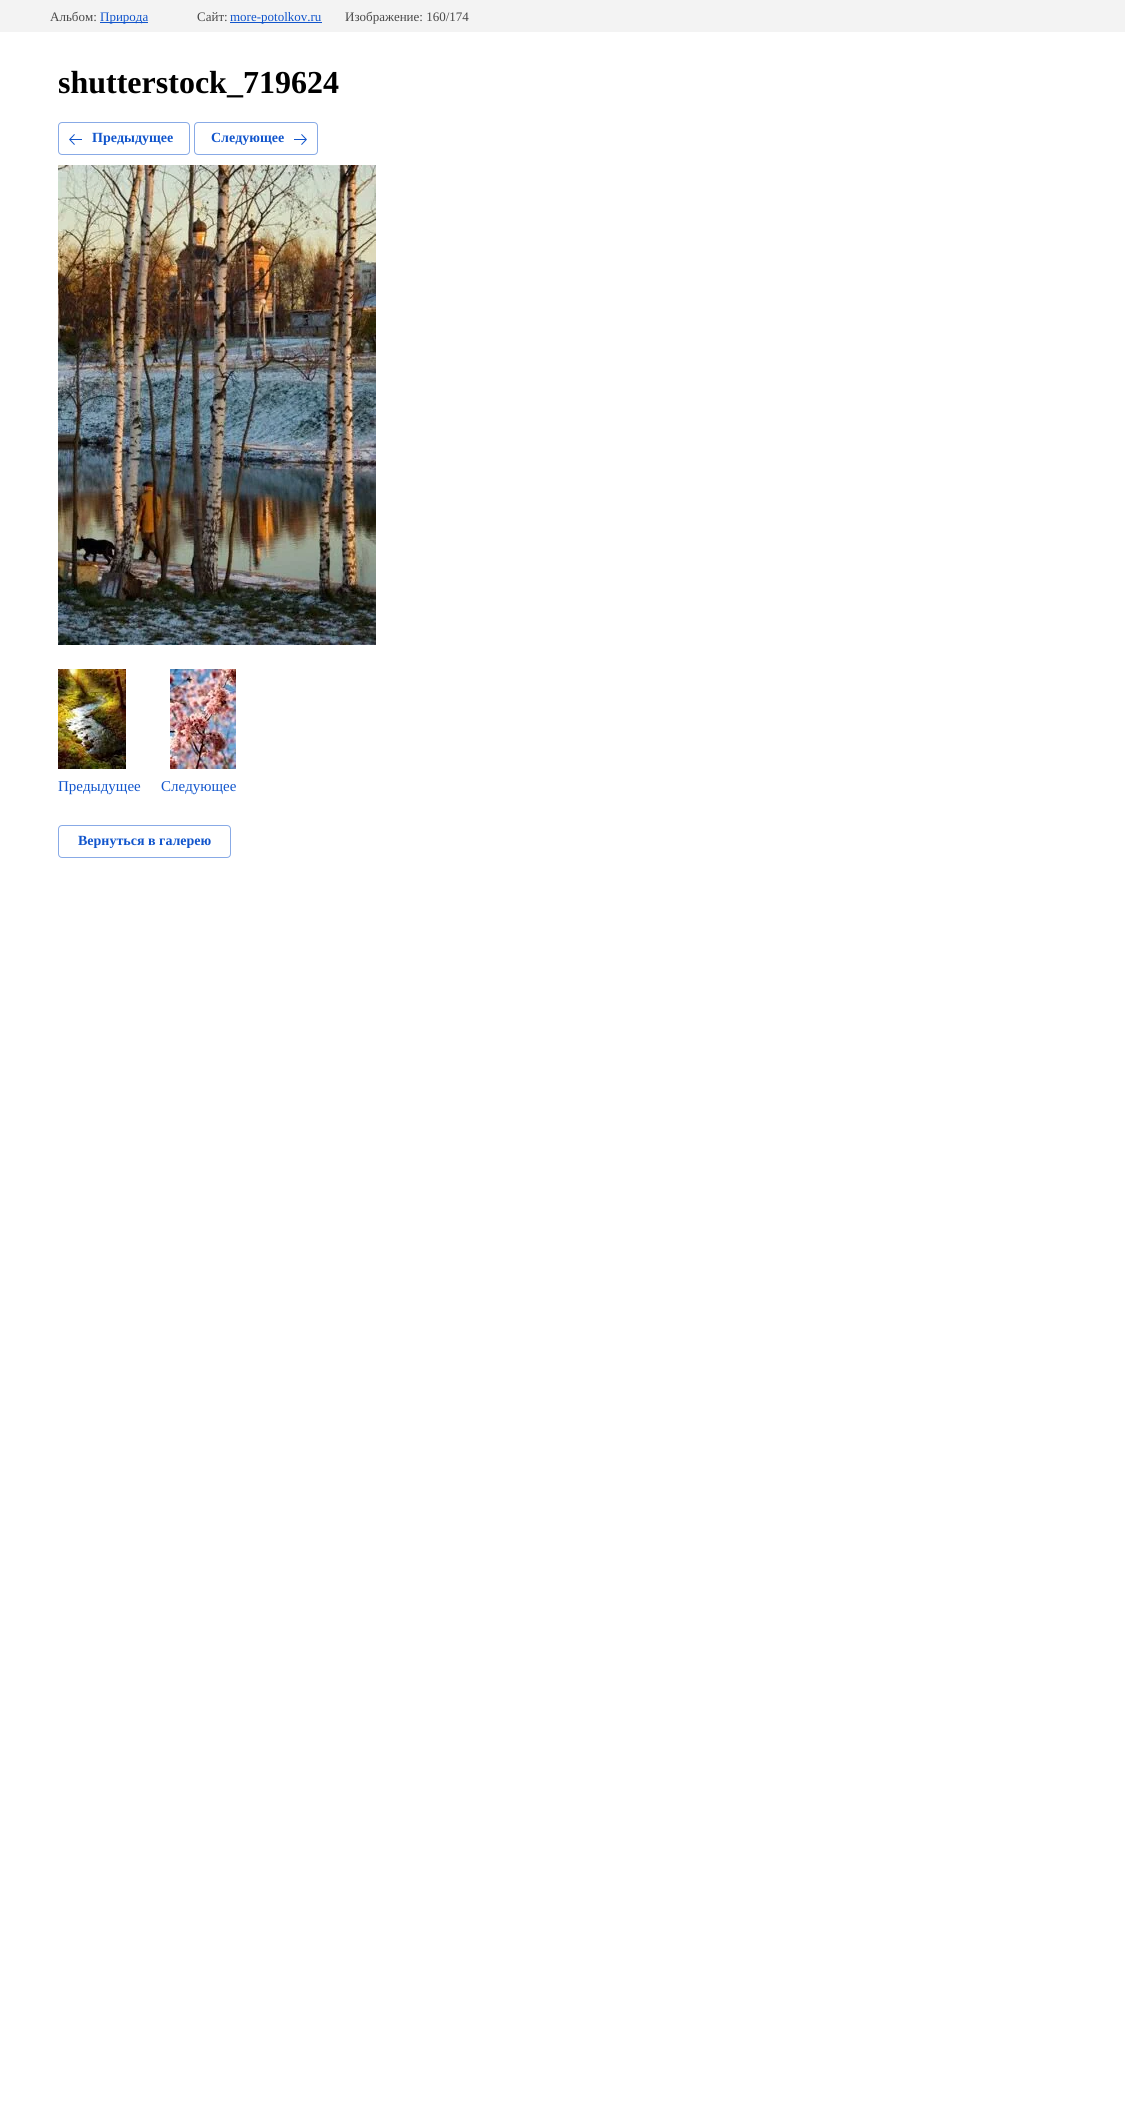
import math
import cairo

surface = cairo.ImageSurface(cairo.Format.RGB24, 1125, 2104)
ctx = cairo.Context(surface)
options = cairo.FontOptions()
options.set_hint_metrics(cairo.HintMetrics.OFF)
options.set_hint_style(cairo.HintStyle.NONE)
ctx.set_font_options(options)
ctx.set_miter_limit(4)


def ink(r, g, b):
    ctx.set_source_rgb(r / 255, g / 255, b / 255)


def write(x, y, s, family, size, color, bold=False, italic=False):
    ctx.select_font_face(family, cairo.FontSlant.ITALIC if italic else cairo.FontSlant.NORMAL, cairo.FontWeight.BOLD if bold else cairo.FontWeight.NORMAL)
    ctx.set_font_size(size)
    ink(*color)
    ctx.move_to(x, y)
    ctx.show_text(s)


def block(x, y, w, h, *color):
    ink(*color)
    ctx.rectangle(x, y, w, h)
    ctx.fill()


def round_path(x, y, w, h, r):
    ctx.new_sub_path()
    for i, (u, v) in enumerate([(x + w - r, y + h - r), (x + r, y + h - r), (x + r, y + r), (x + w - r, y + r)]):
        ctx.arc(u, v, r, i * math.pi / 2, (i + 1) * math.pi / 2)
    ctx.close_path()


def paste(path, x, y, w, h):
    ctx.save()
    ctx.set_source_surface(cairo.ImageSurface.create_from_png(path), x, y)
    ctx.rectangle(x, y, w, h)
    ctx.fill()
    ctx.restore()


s1 = dict(family="Liberation Serif", size=13, color=(72, 72, 72))
s2 = dict(family="Liberation Serif", size=13, color=(17, 85, 204))
s3 = dict(family="Liberation Serif", size=32, color=(0, 0, 0), bold=True)
s4 = dict(family="Liberation Serif", size=14, color=(17, 85, 204), bold=True)
s5 = dict(family="Liberation Serif", size=15, color=(17, 85, 204))

ink(255, 255, 255)
ctx.paint()
block(0, 0, 1125, 32, 243, 243, 243)
write(50, 21, "Альбом:", **s1)
block(100, 22, 48, 1, 17, 85, 204)
write(100, 21, "Природа", **s2)
write(197, 21, "Сайт:", **s1)
block(230, 22, 92, 1, 17, 85, 204)
write(230, 21, "more-potolkov.ru", **s2)
write(345, 21, "Изображение: 160/174", **s1)
write(58, 93, "shutterstock_719624", **s3)
round_path(58.5, 122.5, 131, 32, 3.5)
ink(136, 170, 230)
ctx.set_line_width(1)
ctx.stroke()
paste("pic1.png", 69, 134, 13, 11)
write(92, 142, "Предыдущее", **s4)
round_path(194.5, 122.5, 123, 32, 3.5)
ink(136, 170, 230)
ctx.stroke()
write(211, 142, "Следующее", **s4)
paste("pic2.png", 294, 134, 13, 11)
paste("pic3.png", 58, 165, 318, 480)
paste("pic4.png", 58, 669, 68, 100)
write(58, 791, "Предыдущее", **s5)
paste("pic5.png", 170, 669, 66, 100)
write(161, 791, "Следующее", **s5)
round_path(58.5, 825.5, 172, 32, 3.5)
ink(136, 170, 230)
ctx.stroke()
write(78, 845, "Вернуться в галерею", **s4)
surface.write_to_png("screenshot.png")
